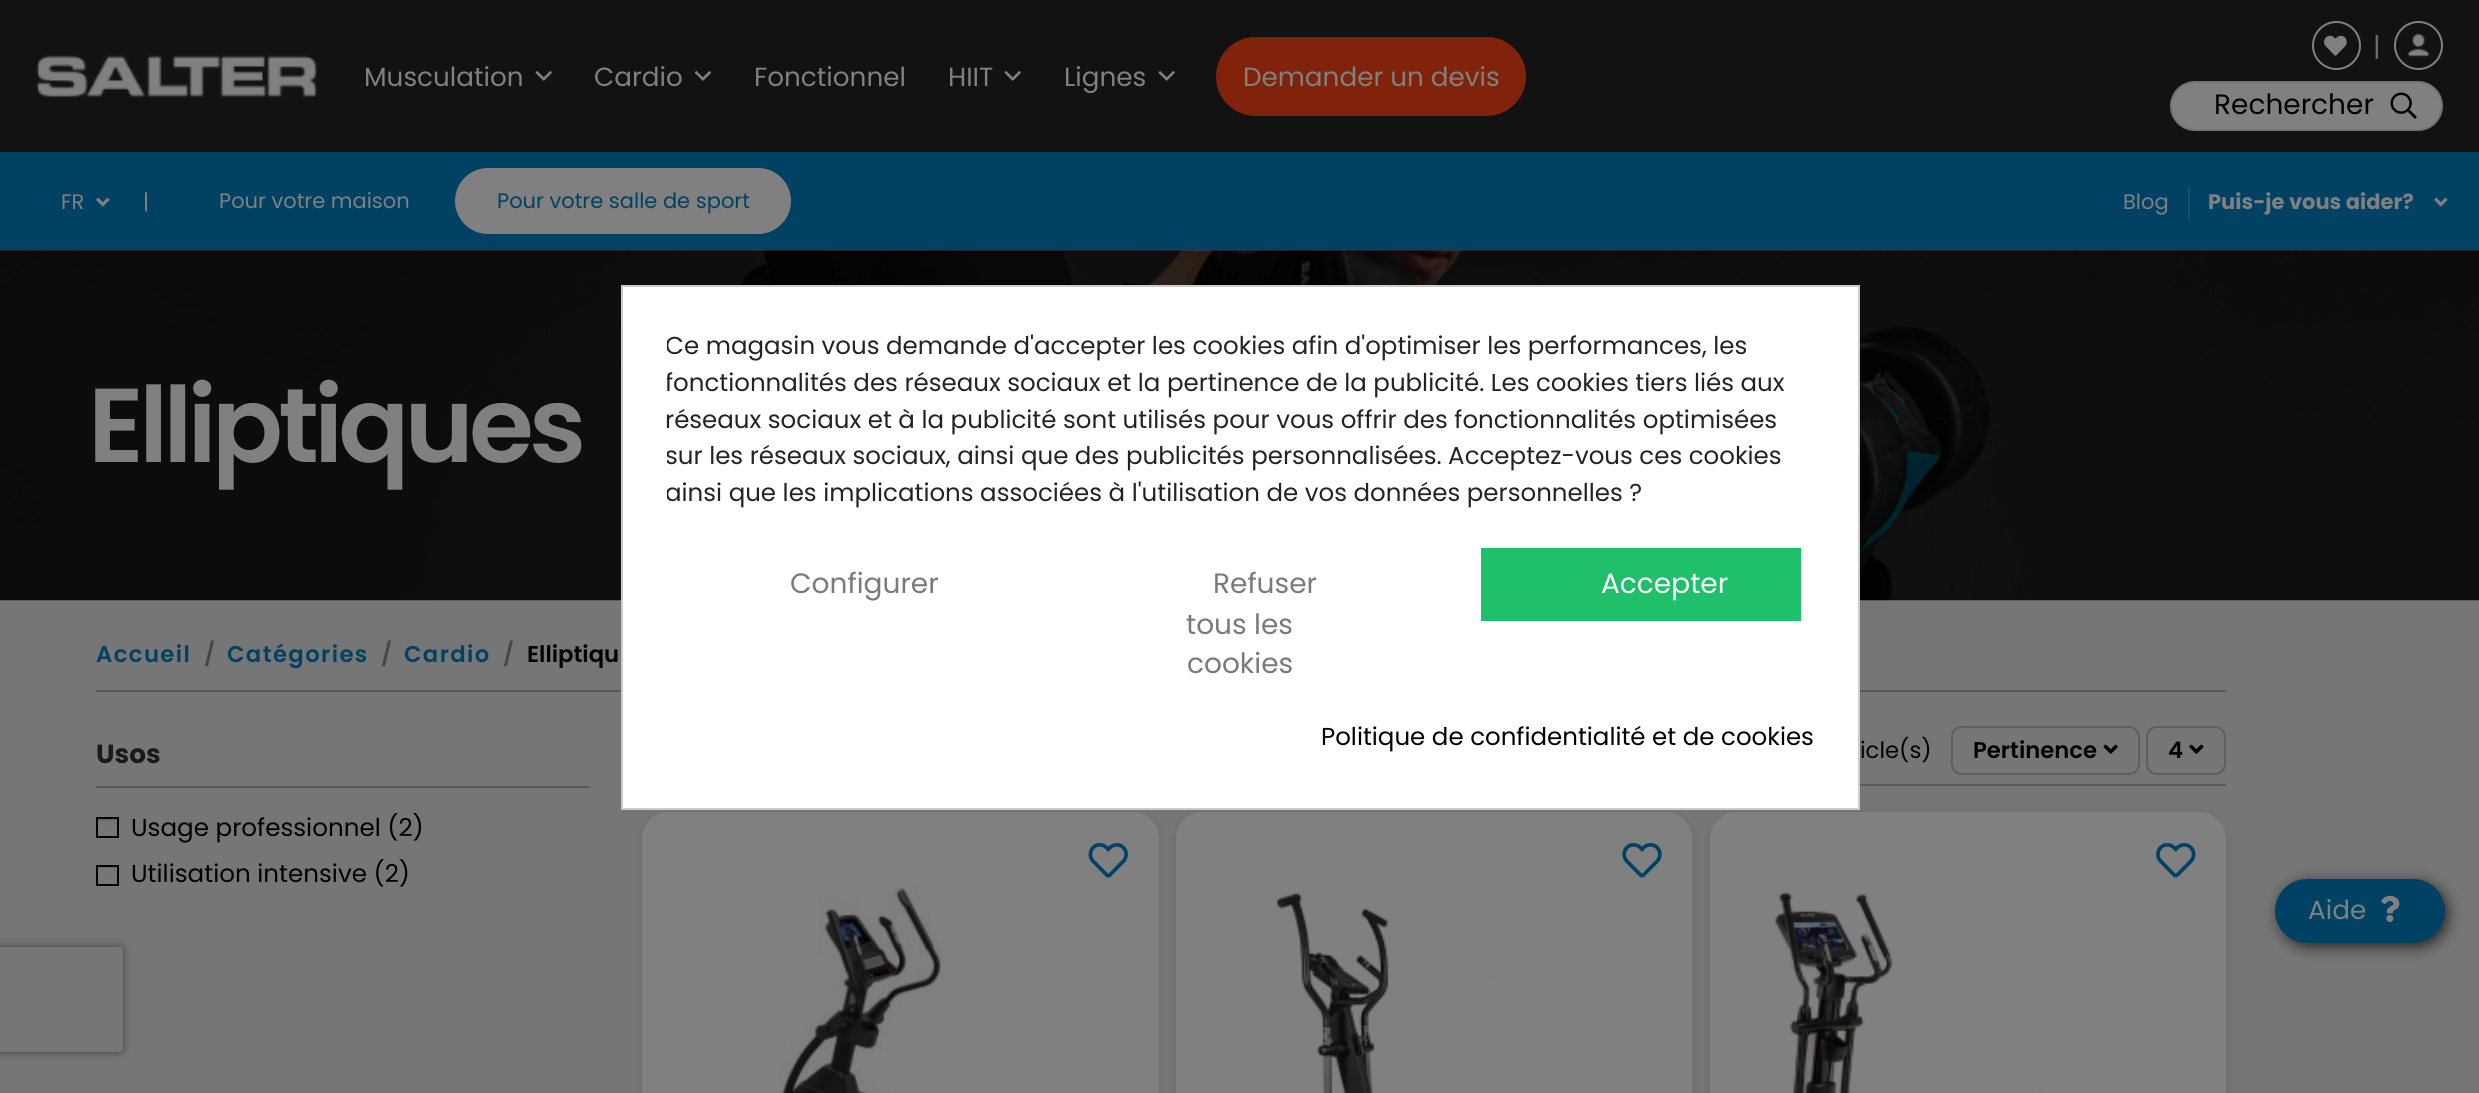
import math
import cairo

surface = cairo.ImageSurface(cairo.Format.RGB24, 2479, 1093)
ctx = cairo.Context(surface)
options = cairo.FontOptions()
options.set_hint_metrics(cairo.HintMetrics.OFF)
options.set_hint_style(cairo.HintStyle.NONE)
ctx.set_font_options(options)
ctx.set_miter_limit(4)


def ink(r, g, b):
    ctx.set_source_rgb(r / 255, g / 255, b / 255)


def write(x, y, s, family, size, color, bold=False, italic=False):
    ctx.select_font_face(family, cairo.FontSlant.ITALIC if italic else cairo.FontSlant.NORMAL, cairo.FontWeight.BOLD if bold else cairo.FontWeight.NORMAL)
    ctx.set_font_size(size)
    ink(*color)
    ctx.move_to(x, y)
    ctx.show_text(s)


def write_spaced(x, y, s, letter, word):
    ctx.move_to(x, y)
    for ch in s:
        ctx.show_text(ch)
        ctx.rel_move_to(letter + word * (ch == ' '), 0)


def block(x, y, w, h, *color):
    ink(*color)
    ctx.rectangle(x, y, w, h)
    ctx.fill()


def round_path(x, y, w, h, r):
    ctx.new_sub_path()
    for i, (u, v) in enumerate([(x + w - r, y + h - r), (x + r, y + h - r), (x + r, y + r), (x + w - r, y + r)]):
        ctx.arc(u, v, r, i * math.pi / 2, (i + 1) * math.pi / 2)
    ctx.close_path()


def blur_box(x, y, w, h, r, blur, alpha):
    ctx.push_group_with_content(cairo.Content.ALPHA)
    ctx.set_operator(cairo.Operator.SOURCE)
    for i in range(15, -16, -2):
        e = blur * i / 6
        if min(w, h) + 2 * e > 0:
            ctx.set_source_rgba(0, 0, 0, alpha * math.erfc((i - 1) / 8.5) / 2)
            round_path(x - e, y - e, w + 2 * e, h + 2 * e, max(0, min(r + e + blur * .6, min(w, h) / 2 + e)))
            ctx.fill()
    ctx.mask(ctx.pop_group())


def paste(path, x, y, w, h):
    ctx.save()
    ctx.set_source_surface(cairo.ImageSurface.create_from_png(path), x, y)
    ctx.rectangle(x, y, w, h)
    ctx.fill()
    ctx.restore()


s1 = dict(family="Poppins", size=26.25, color=(128, 128, 128))
s2 = dict(family="Poppins", size=26.25, color=(106, 106, 106))
s3 = dict(family="Poppins", size=28, color=(0, 0, 0))
s4 = dict(family="Poppins", size=21, color=(128, 128, 128))
s5 = dict(family="Poppins", size=21, color=(1, 65, 100))
s6 = dict(family="Poppins", size=21, color=(128, 128, 128), bold=True)
s7 = dict(family="Poppins SemiBold", size=22.75, color=(71, 71, 71))
s8 = dict(family="Poppins SemiBold", size=22.75, color=(0, 0, 0))
s9 = dict(family="Poppins", size=26.25, color=(26, 26, 26), bold=True)
s10 = dict(family="Poppins", size=24.6, color=(0, 0, 0))
s11 = dict(family="Poppins", size=22.75, color=(0, 0, 0))
s12 = dict(family="Poppins", size=24.5, color=(35, 35, 35))
s13 = dict(family="Poppins", size=28, color=(122, 122, 122))
s14 = dict(family="Poppins", size=28, color=(255, 255, 255))
s15 = dict(family="Poppins", size=24.5, color=(0, 0, 0))

ink(118, 118, 118)
ctx.paint()
block(0, 0, 2479, 152, 18, 18, 18)
paste("pic1.png", 36, 55, 281, 43)
write(364, 86, "Musculation", **s1)
paste("pic2.png", 535, 71, 17, 10)
write(594, 86, "Cardio", **s1)
paste("pic3.png", 694, 71, 18, 10)
write(754, 86, "Fonctionnel", **s1)
write(948, 86, "HIIT", **s1)
paste("pic2.png", 1004, 71, 17, 10)
write(1064, 86, "Lignes", **s1)
paste("pic2.png", 1158, 71, 17, 10)
ink(128, 35, 10)
round_path(1216, 37, 310, 79, 39.5)
ctx.fill()
write(1243, 86, "Demander un devis", **s1)
ctx.new_path()
ctx.arc(2336.5, 45.5, 23.5, 0, 2 * math.pi)
ctx.stroke()
paste("pic4.png", 2324, 35, 23, 21)
write(2373, 56, "|", **s2)
ctx.new_path()
ctx.arc(2418.5, 45.5, 23.5, 0, 2 * math.pi)
ink(128, 128, 128)
ctx.stroke()
paste("pic5.png", 2407, 33, 23, 24)
round_path(2171, 82, 271, 48, 24)
ctx.fill_preserve()
ink(114, 114, 114)
ctx.stroke()
write(2214, 114, "Rechercher", **s3)
paste("pic6.png", 2390, 92, 27, 27)
block(0, 152, 2479, 98, 1, 65, 100)
write(61, 209, "FR", **s4)
paste("pic7.png", 96, 197, 14, 10)
write(143, 209, "|", **s4)
write(219, 208, "Pour votre maison", **s4)
round_path(454, 167, 338, 68, 34)
ctx.fill_preserve()
ink(1, 65, 100)
ctx.stroke()
write(497, 208, "Pour votre salle de sport", **s5)
write(2123, 209, "Blog", **s4)
block(2188, 187, 2, 32, 27, 78, 106)
write(2208, 209, "Puis-je vous aider?", **s6)
paste("pic7.png", 2434, 197, 14, 10)
paste("pic8.png", 0, 250, 2479, 351)
ctx.select_font_face("Poppins SemiBold")
ctx.set_font_size(105)
write_spaced(88, 462, "Elliptiques", -4.9, 0)
block(96, 690, 2130, 2, 89, 89, 89)
ctx.set_font_size(22.75)
ink(1, 65, 100)
write_spaced(96, 662, "Accueil", 1.4, 0)
write(204, 662, "/", **s7)
ink(1, 65, 100)
write_spaced(227, 662, "Catégories", 1.4, 0)
write(381, 662, "/", **s7)
ink(1, 65, 100)
write_spaced(404, 662, "Cardio", 1.4, 0)
write(503, 662, "/", **s7)
write(527, 662, "Elliptiqu", **s8)
block(96, 786, 494, 2, 89, 89, 89)
write(96, 763, "Usos", **s9)
block(98, 819, 19, 2, 108, 108, 108)
ctx.rectangle(97, 818, 21, 19)
ink(0, 0, 0)
ctx.stroke()
write(131, 836, "Usage professionnel (2)", **s10)
block(98, 867, 19, 1, 108, 108, 108)
ctx.rectangle(97, 866, 21, 19)
ink(0, 0, 0)
ctx.stroke()
write(131, 882, "Utilisation intensive (2)", **s10)
block(1860, 784, 366, 2, 89, 89, 89)
write(1860, 758, "icle(s)", **s11)
round_path(1952, 727, 187, 47, 10)
ink(95, 95, 95)
ctx.stroke()
write(1973, 758, "Pertinence", **s8)
paste("pic9.png", 2103, 744, 15, 10)
round_path(2147, 727, 78, 47, 10)
ink(95, 95, 95)
ctx.stroke()
write(2168, 758, "4", **s8)
paste("pic10.png", 2189, 744, 15, 10)
ink(0, 0, 0)
blur_box(642, 814, 517, 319, 26, 4.5, 0.1)
ink(128, 128, 128)
round_path(643, 813, 515, 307, 25)
ctx.fill_preserve()
ctx.stroke()
paste("pic11.png", 1088, 843, 40, 35)
paste("pic12.png", 779, 886, 164, 207)
ink(0, 0, 0)
blur_box(1176, 814, 516, 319, 26, 4.5, 0.1)
ink(128, 128, 128)
round_path(1177, 813, 514, 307, 25)
ctx.fill_preserve()
ctx.stroke()
paste("pic13.png", 1622, 843, 40, 35)
paste("pic14.png", 1276, 892, 257, 201)
ink(0, 0, 0)
blur_box(1710, 814, 516, 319, 26, 4.5, 0.1)
ink(128, 128, 128)
round_path(1711, 813, 514, 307, 25)
ctx.fill_preserve()
ctx.stroke()
paste("pic15.png", 2156, 843, 40, 35)
paste("pic16.png", 1774, 882, 269, 211)
ctx.save()
ctx.set_fill_rule(cairo.FillRule.EVEN_ODD)
ctx.new_path()
ctx.move_to(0, 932)
ctx.line_to(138, 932)
ctx.line_to(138, 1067)
ctx.line_to(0, 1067)
ctx.close_path()
ctx.move_to(-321, 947)
ctx.line_to(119, 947)
ctx.curve_to(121, 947, 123, 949, 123, 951)
ctx.line_to(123, 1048)
ctx.curve_to(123, 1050, 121, 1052, 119, 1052)
ctx.line_to(-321, 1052)
ctx.curve_to(-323, 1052, -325, 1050, -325, 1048)
ctx.line_to(-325, 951)
ctx.curve_to(-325, 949, -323, 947, -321, 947)
ctx.close_path()
ctx.clip()
ink(64, 64, 64)
blur_box(-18, 947, 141, 105, 4, 4.5, 1)
ctx.restore()
ink(255, 255, 255)
ctx.rectangle(622, 286, 1237, 523)
ctx.fill_preserve()
ink(204, 204, 204)
ctx.stroke()
ctx.save()
ctx.rectangle(667, 329, 1148, 184)
ctx.clip()
write(665, 354, "Ce magasin vous demande d'accepter les cookies afin d'optimiser les performances, les", **s12)
write(665, 391, "fonctionnalités des réseaux sociaux et la pertinence de la publicité. Les cookies tiers liés aux", **s12)
ctx.restore()
write(665, 428, "réseaux sociaux et à la publicité sont utilisés pour vous offrir des fonctionnalités optimisées", **s12)
ctx.save()
ctx.rectangle(667, 329, 1148, 184)
ctx.clip()
write(665, 464, "sur les réseaux sociaux, ainsi que des publicités personnalisées. Acceptez-vous ces cookies", **s12)
write(665, 501, "ainsi que les implications associées à l'utilisation de vos données personnelles ?", **s12)
ctx.restore()
write(790, 593, "Configurer", **s13)
write(1213, 593, "Refuser", **s13)
write(1186, 634, "tous les", **s13)
write(1187, 673, "cookies", **s13)
block(1481, 548, 320, 73, 32, 191, 107)
write(1601, 593, "Accepter", **s14)
write(1321, 745, "Politique de confidentialité et de cookies", **s15)
ink(0, 0, 0)
blur_box(2279, 882, 169, 65, 32.5, 7, 0.65)
ink(1, 65, 100)
round_path(2275, 879, 170, 64, 32)
ctx.fill()
write(2308, 919, "Aide", **s1)
paste("pic17.png", 2381, 895, 19, 27)
surface.write_to_png("screenshot.png")
